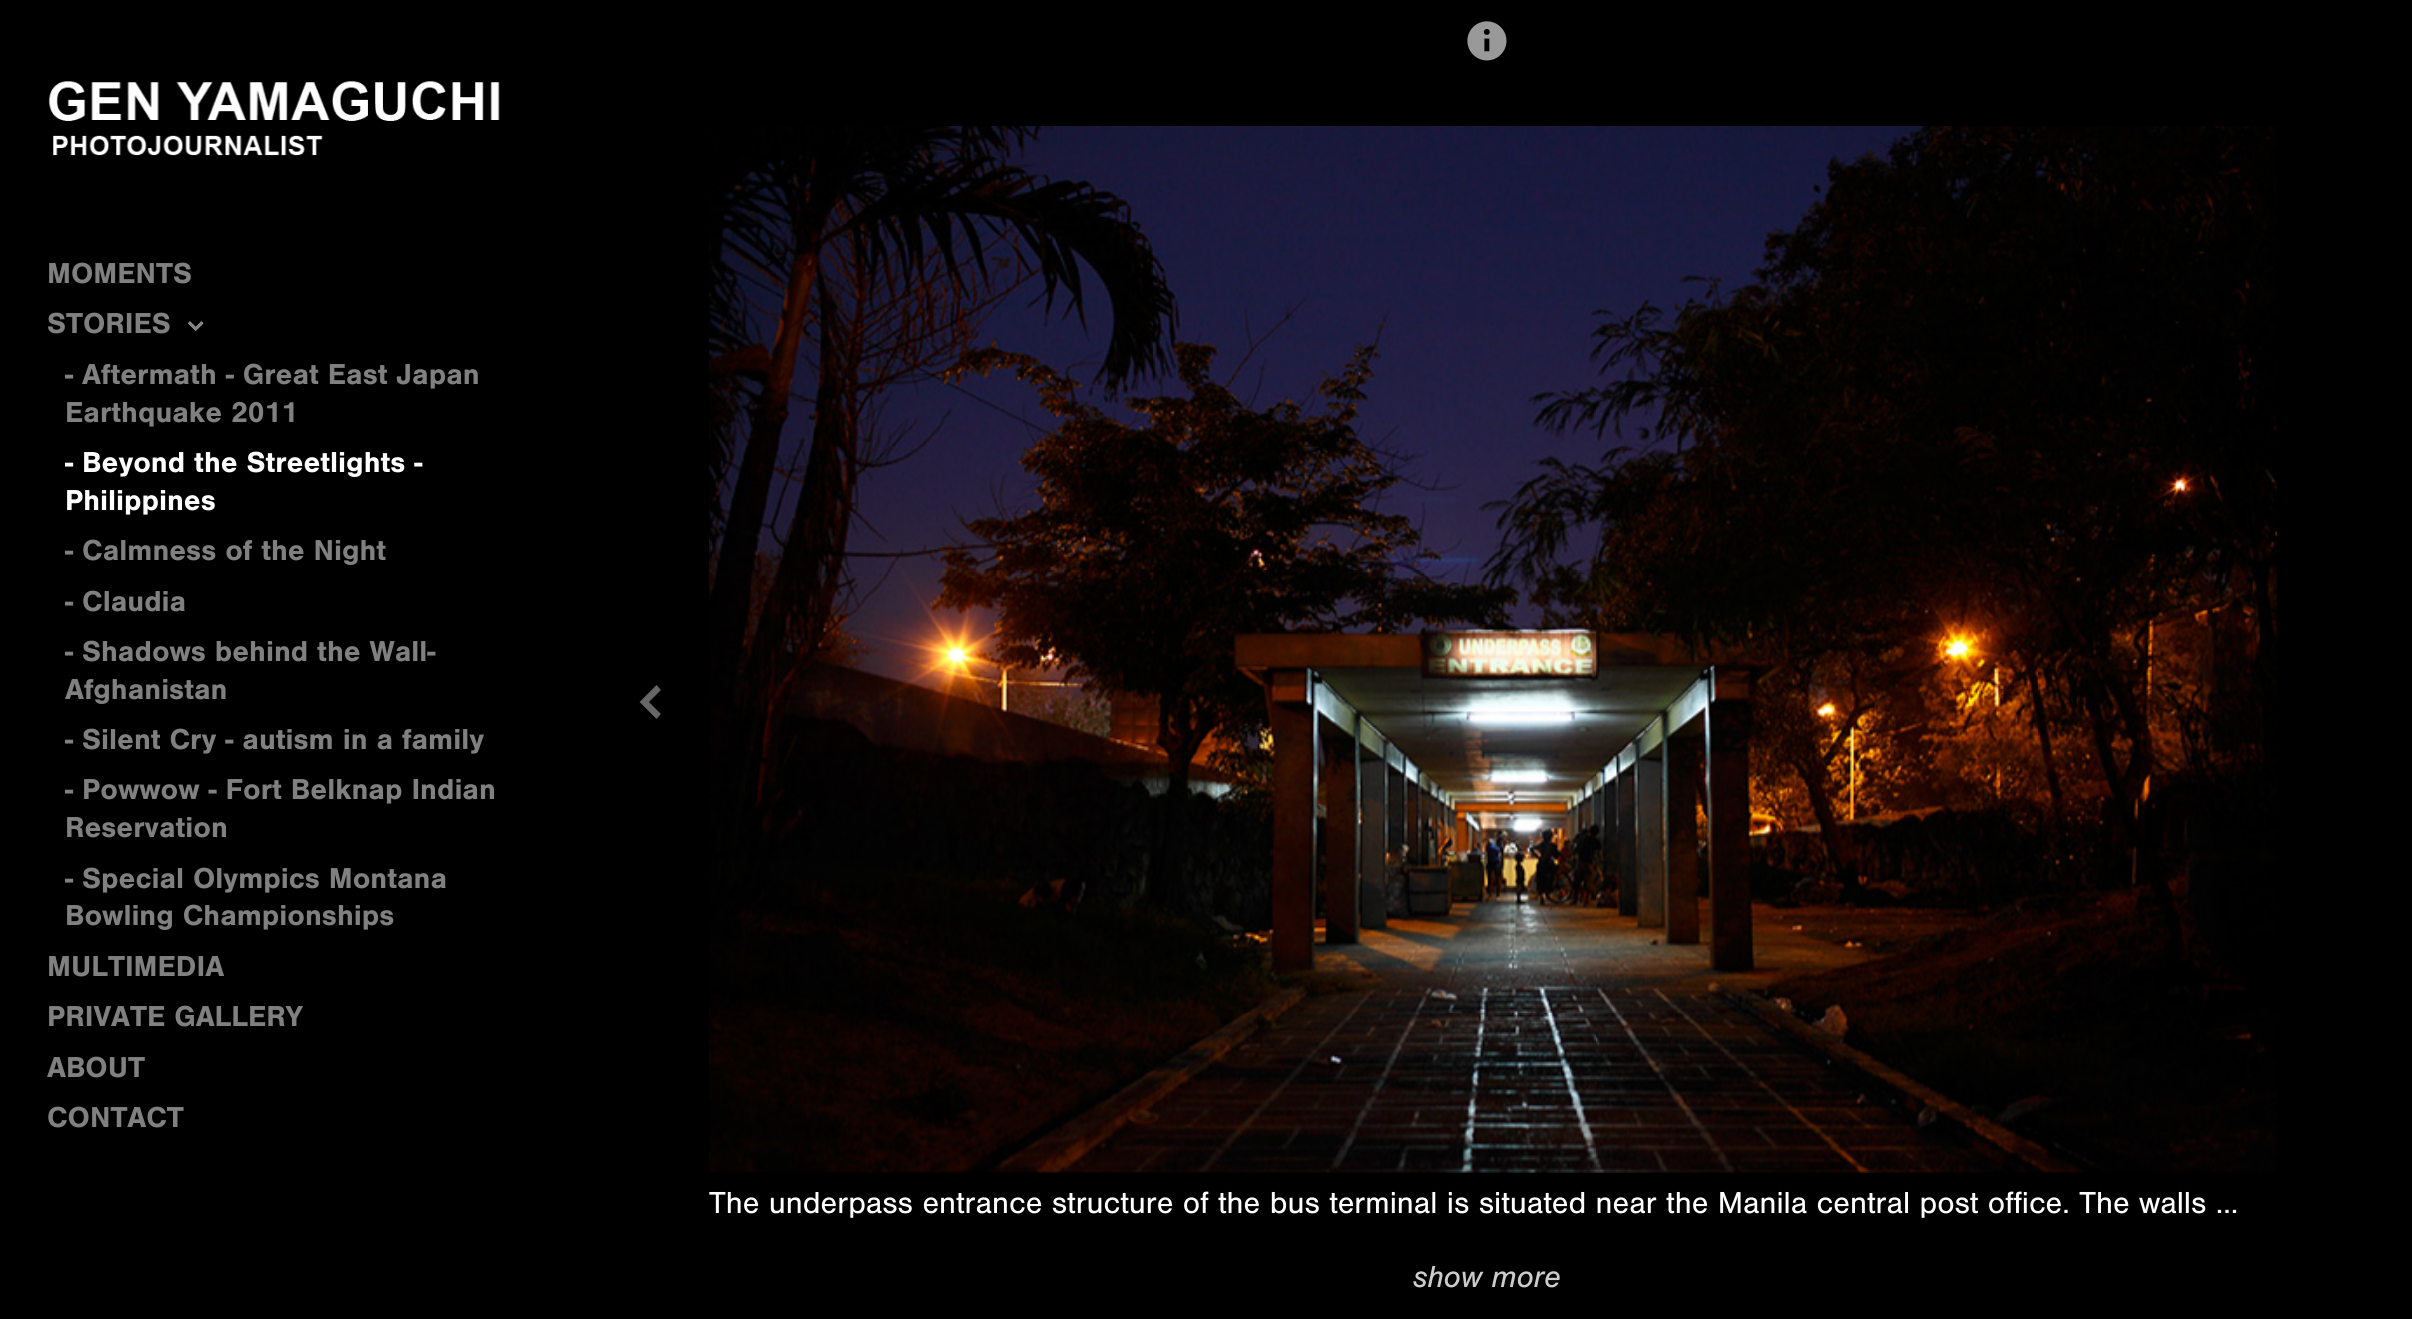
import math
import cairo

surface = cairo.ImageSurface(cairo.Format.RGB24, 2412, 1319)
ctx = cairo.Context(surface)
options = cairo.FontOptions()
options.set_hint_metrics(cairo.HintMetrics.OFF)
options.set_hint_style(cairo.HintStyle.NONE)
ctx.set_font_options(options)
ctx.set_miter_limit(4)


def ink(r, g, b):
    ctx.set_source_rgb(r / 255, g / 255, b / 255)


def write(x, y, s, family, size, color, bold=False, italic=False):
    ctx.select_font_face(family, cairo.FontSlant.ITALIC if italic else cairo.FontSlant.NORMAL, cairo.FontWeight.BOLD if bold else cairo.FontWeight.NORMAL)
    ctx.set_font_size(size)
    ink(*color)
    ctx.move_to(x, y)
    ctx.show_text(s)


def paste(path, x, y, w, h):
    ctx.save()
    ctx.set_source_surface(cairo.ImageSurface.create_from_png(path), x, y)
    ctx.rectangle(x, y, w, h)
    ctx.fill()
    ctx.restore()


s1 = dict(family="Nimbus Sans", size=29.9, color=(128, 128, 128), bold=True)
s2 = dict(family="Nimbus Sans", size=29.9, color=(255, 255, 255), bold=True)
s3 = dict(family="Nimbus Sans", size=31.5, color=(255, 255, 255))
s4 = dict(family="Nimbus Sans", size=31.5, color=(204, 204, 204), italic=True)

ink(0, 0, 0)
ctx.paint()
paste("pic1.png", 1467, 21, 40, 40)
paste("pic2.png", 48, 81, 452, 75)
write(47, 283, "MOMENTS", **s1)
write(47, 333, "STORIES", **s1)
paste("pic3.png", 187, 321, 17, 10)
write(65, 384, "- Aftermath - Great East Japan", **s1)
write(65, 422, "Earthquake 2011", **s1)
write(65, 472, "- Beyond the Streetlights -", **s2)
write(65, 510, "Philippines", **s2)
write(65, 560, "- Calmness of the Night", **s1)
write(65, 611, "- Claudia", **s1)
write(65, 661, "- Shadows behind the Wall-", **s1)
write(65, 699, "Afghanistan", **s1)
write(65, 749, "- Silent Cry - autism in a family", **s1)
write(65, 799, "- Powwow - Fort Belknap Indian", **s1)
write(65, 837, "Reservation", **s1)
write(65, 888, "- Special Olympics Montana", **s1)
write(65, 925, "Bowling Championships", **s1)
write(47, 976, "MULTIMEDIA", **s1)
write(47, 1026, "PRIVATE GALLERY", **s1)
write(47, 1077, "ABOUT", **s1)
write(47, 1127, "CONTACT", **s1)
ink(102, 102, 102)
ctx.new_path()
ctx.move_to(660, 714)
ctx.line_to(648, 702)
ctx.line_to(660, 690)
ctx.line_to(656.5, 686)
ctx.line_to(640.5, 702)
ctx.line_to(656.5, 718)
ctx.close_path()
ctx.fill_preserve()
ctx.set_line_width(1.3)
ctx.stroke()
paste("pic4.png", 709, 126, 1568, 1047)
write(709, 1213, "The underpass entrance structure of the bus terminal is situated near the Manila central post office. The walls …", **s3)
write(1413, 1287, "show more", **s4)
surface.write_to_png("screenshot.png")
